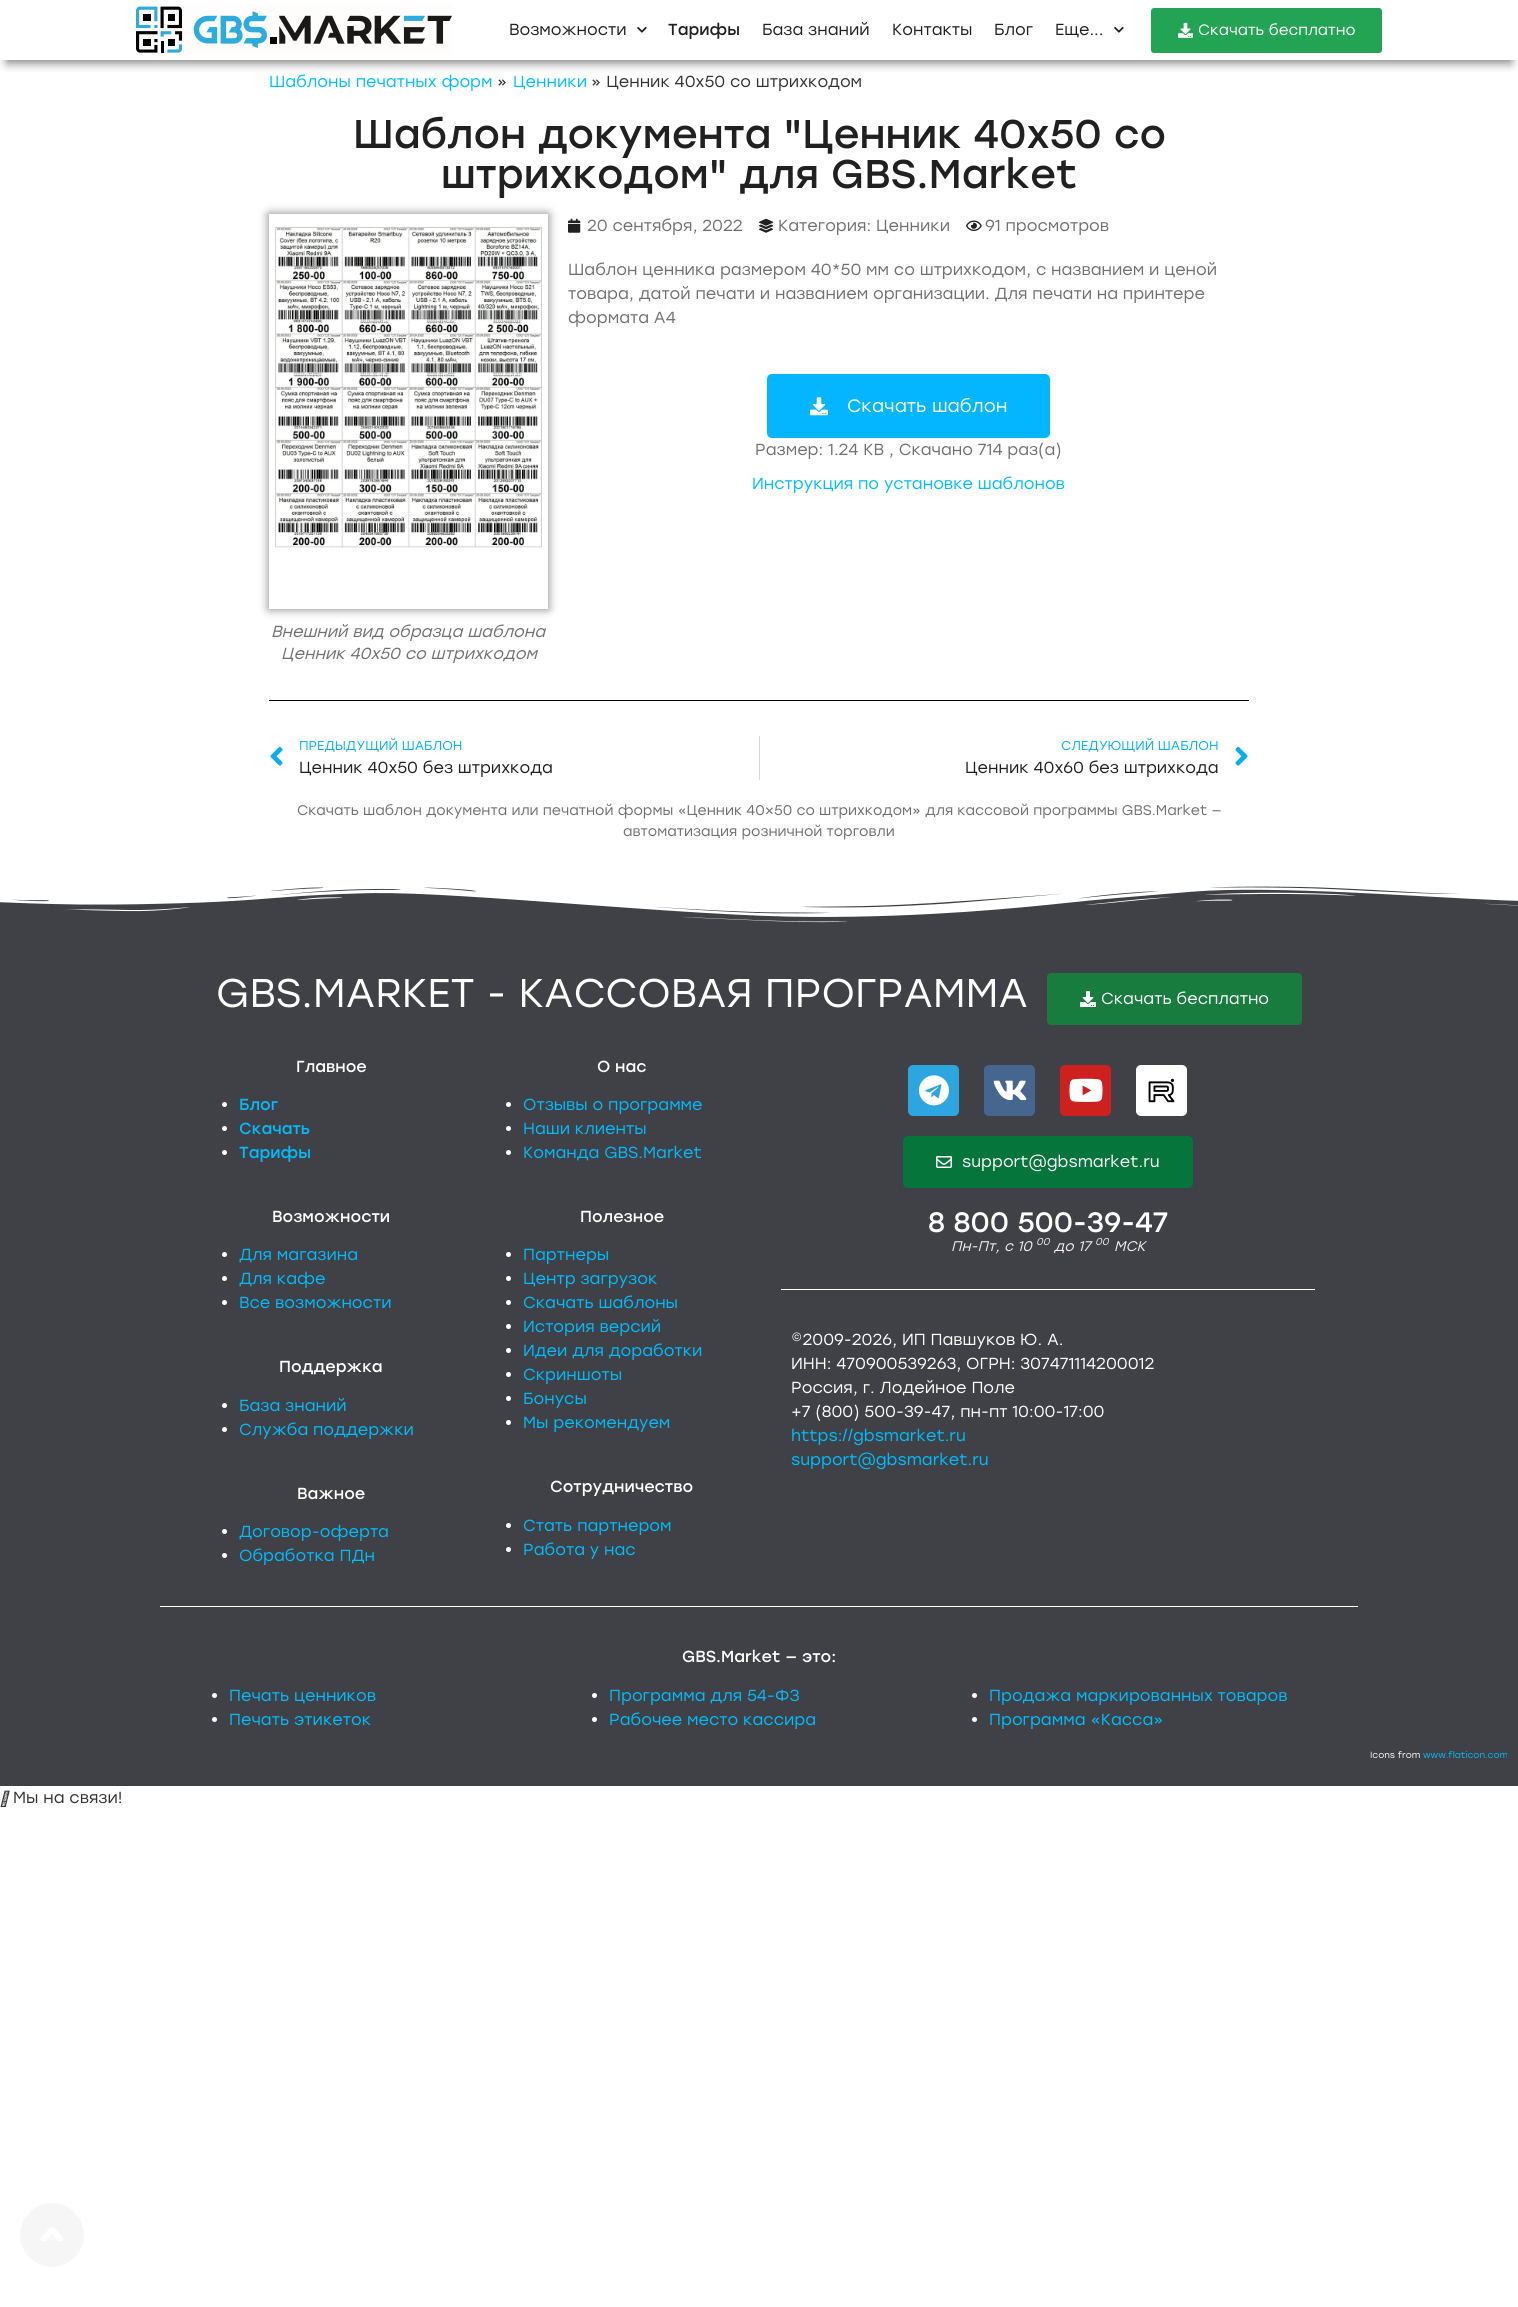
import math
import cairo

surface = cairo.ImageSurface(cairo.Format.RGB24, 1518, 2307)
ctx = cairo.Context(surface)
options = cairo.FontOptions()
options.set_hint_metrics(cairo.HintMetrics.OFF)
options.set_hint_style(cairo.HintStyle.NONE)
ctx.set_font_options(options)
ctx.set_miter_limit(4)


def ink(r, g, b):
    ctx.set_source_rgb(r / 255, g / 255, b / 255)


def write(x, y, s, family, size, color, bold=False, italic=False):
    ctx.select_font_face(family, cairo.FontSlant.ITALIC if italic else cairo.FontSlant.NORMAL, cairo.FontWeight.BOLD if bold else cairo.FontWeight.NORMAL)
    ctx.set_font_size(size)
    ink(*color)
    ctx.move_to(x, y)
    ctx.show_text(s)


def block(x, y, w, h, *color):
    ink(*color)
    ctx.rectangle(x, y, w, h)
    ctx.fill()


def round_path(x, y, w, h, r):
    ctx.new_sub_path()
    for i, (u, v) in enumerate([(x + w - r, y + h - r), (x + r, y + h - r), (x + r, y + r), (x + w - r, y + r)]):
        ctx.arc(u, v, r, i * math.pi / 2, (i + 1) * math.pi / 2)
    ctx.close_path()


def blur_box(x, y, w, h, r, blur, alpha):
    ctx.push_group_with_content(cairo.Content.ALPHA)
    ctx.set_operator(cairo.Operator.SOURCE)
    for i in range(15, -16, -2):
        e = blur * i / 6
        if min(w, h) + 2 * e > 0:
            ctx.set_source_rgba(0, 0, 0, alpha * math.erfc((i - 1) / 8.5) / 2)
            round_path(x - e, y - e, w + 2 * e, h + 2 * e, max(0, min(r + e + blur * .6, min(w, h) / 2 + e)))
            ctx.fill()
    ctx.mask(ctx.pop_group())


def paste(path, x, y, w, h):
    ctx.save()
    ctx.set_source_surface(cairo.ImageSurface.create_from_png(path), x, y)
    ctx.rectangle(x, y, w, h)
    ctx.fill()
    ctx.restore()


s1 = dict(family="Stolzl", size=16, color=(32, 32, 32))
s2 = dict(family="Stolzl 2", size=16, color=(32, 32, 32))
s3 = dict(family="Stolzl", size=15, color=(255, 255, 255))
s4 = dict(family="Stolzl", size=16, color=(0, 190, 254))
s5 = dict(family="Stolzl", size=16, color=(51, 51, 51))
s6 = dict(family="Stolzl 2", size=40, color=(32, 32, 32))
s7 = dict(family="Stolzl", size=16, color=(112, 112, 112))
s8 = dict(family="Stolzl", size=18, color=(255, 255, 255))
s9 = dict(family="Stolzl", size=16, color=(112, 112, 112), italic=True)
s10 = dict(family="Stolzl", size=12.75, color=(0, 175, 249))
s11 = dict(family="Stolzl", size=14, color=(112, 112, 112))
s12 = dict(family="Stolzl", size=40, color=(255, 255, 255))
s13 = dict(family="Stolzl", size=16, color=(255, 255, 255))
s14 = dict(family="Stolzl 2", size=16, color=(255, 255, 255))
s15 = dict(family="Stolzl 2", size=16, color=(0, 190, 254))
s16 = dict(family="Stolzl 2", size=28, color=(255, 255, 255))
s17 = dict(family="Stolzl", size=14, color=(243, 237, 237), italic=True)
s18 = dict(family="Stolzl", size=10, color=(243, 237, 237), italic=True)
s19 = dict(family="Stolzl", size=9, color=(255, 255, 255))
s20 = dict(family="Stolzl", size=9, color=(0, 190, 254))

ink(255, 255, 255)
ctx.paint()
ctx.save()
ctx.rectangle(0, 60, 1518, 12)
ctx.clip()
ink(0, 0, 0)
blur_box(7, 17, 1504, 46, 0, 5, 0.5)
ctx.restore()
block(136, 5, 316, 50, 255, 252, 252)
paste("pic1.png", 136, 6, 316, 47)
write(509, 35, "Возможности", **s1)
paste("pic2.png", 637, 27, 10, 6)
write(668, 35, "Тарифы", **s2)
write(762, 35, "База знаний", **s1)
write(892, 35, "Контакты", **s1)
write(994, 35, "Блог", **s1)
write(1055, 35, "Еще...", **s1)
paste("pic2.png", 1114, 27, 10, 6)
ink(35, 164, 85)
round_path(1151, 8, 231, 45, 3)
ctx.fill()
paste("pic3.png", 1178, 22, 15, 16)
write(1198, 35, "Скачать бесплатно", **s3)
write(269, 87, "Шаблоны печатных форм", **s4)
write(497, 87, "»", **s5)
write(513, 87, "Ценники", **s4)
write(591, 87, "» Ценник 40x50 со штрихкодом", **s5)
write(353, 148, "Шаблон документа \"Ценник 40x50 со", **s6)
write(441, 188, "штрихкодом\" для GBS.Market", **s6)
paste("pic4.png", 568, 218, 13, 15)
write(587, 231, "20 сентября, 2022", **s7)
paste("pic5.png", 759, 218, 14, 15)
write(778, 231, "Категория: Ценники", **s7)
paste("pic6.png", 966, 220, 16, 11)
write(985, 231, "91 просмотров", **s7)
write(568, 275, "Шаблон ценника размером 40*50 мм со штрихкодом, с названием и ценой", **s7)
write(568, 299, "товара, датой печати и названием организации. Для печати на принтере", **s7)
write(568, 323, "формата А4", **s7)
ink(4, 181, 255)
round_path(767, 374, 283, 64, 5)
ctx.fill()
paste("pic7.png", 810, 397, 18, 19)
write(847, 412, "Скачать шаблон", **s8)
write(755, 455, "Размер: 1.24 KB , Скачано 714 раз(а)", **s7)
write(752, 489, "Инструкция по установке шаблонов", **s4)
ctx.save()
ctx.set_fill_rule(cairo.FillRule.EVEN_ODD)
ctx.new_path()
ctx.move_to(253, 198)
ctx.line_to(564, 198)
ctx.line_to(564, 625)
ctx.line_to(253, 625)
ctx.close_path()
ctx.move_to(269, 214)
ctx.line_to(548, 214)
ctx.line_to(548, 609)
ctx.line_to(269, 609)
ctx.close_path()
ctx.clip()
ink(0, 0, 0)
blur_box(269, 214, 279, 395, 0, 5, 0.5)
ctx.restore()
paste("pic8.png", 275, 226, 267, 322)
write(271, 637, "Внешний вид образца шаблона", **s9)
write(281, 659, "Ценник 40x50 со штрихкодом", **s9)
block(269, 700, 980, 1, 0, 0, 0)
paste("pic9.png", 270, 746, 13, 20)
write(299, 750, "ПРЕДЫДУЩИЙ ШАБЛОН", **s10)
write(299, 773, "Ценник 40x50 без штрихкода", **s1)
block(759, 736, 1, 44, 213, 216, 220)
write(1061, 750, "СЛЕДУЮЩИЙ ШАБЛОН", **s10)
write(965, 773, "Ценник 40x60 без штрихкода", **s1)
paste("pic10.png", 1235, 746, 13, 20)
write(297, 815, "Скачать шаблон документа или печатной формы «Ценник 40×50 со штрихкодом» для кассовой программы GBS.Market —", **s11)
write(623, 836, "автоматизация розничной торговли", **s11)
block(0, 886, 1518, 900, 63, 65, 70)
paste("pic11.png", 0, 882, 1518, 41)
write(216, 1007, "GBS.MARKET - КАССОВАЯ ПРОГРАММА", **s12)
ink(23, 124, 62)
round_path(1047, 973, 255, 52, 4)
ctx.fill()
paste("pic12.png", 1080, 991, 16, 16)
write(1101, 1004, "Скачать бесплатно", **s13)
write(296, 1072, "Главное", **s14)
ctx.new_path()
ctx.arc(224.5, 1104.5, 2.5, 0, 2 * math.pi)
ctx.fill()
write(239, 1110, "Блог", **s15)
ink(255, 255, 255)
ctx.new_path()
ctx.arc(224.5, 1128.5, 2.5, 0, 2 * math.pi)
ctx.fill()
write(239, 1134, "Скачать", **s15)
ink(255, 255, 255)
ctx.new_path()
ctx.arc(224.5, 1152.5, 2.5, 0, 2 * math.pi)
ctx.fill()
write(239, 1158, "Тарифы", **s15)
write(272, 1222, "Возможности", **s14)
ctx.new_path()
ctx.arc(224.5, 1254.5, 2.5, 0, 2 * math.pi)
ctx.fill()
write(239, 1260, "Для магазина", **s4)
ink(255, 255, 255)
ctx.new_path()
ctx.arc(224.5, 1278.5, 2.5, 0, 2 * math.pi)
ctx.fill()
write(239, 1284, "Для кафе", **s4)
ink(255, 255, 255)
ctx.new_path()
ctx.arc(224.5, 1302.5, 2.5, 0, 2 * math.pi)
ctx.fill()
write(239, 1308, "Все возможности", **s4)
write(279, 1372, "Поддержка", **s14)
ctx.new_path()
ctx.arc(224.5, 1405.5, 2.5, 0, 2 * math.pi)
ctx.fill()
write(239, 1411, "База знаний", **s4)
ink(255, 255, 255)
ctx.new_path()
ctx.arc(224.5, 1429.5, 2.5, 0, 2 * math.pi)
ctx.fill()
write(239, 1435, "Служба поддержки", **s4)
write(297, 1499, "Важное", **s14)
ctx.new_path()
ctx.arc(224.5, 1531.5, 2.5, 0, 2 * math.pi)
ctx.fill()
write(239, 1537, "Договор-оферта", **s4)
ink(255, 255, 255)
ctx.new_path()
ctx.arc(224.5, 1555.5, 2.5, 0, 2 * math.pi)
ctx.fill()
write(239, 1561, "Обработка ПДн", **s4)
write(597, 1072, "О нас", **s14)
ctx.new_path()
ctx.arc(508.5, 1104.5, 2.5, 0, 2 * math.pi)
ctx.fill()
write(523, 1110, "Отзывы о программе", **s4)
ink(255, 255, 255)
ctx.new_path()
ctx.arc(508.5, 1128.5, 2.5, 0, 2 * math.pi)
ctx.fill()
write(523, 1134, "Наши клиенты", **s4)
ink(255, 255, 255)
ctx.new_path()
ctx.arc(508.5, 1152.5, 2.5, 0, 2 * math.pi)
ctx.fill()
write(523, 1158, "Команда GBS.Market", **s4)
write(580, 1222, "Полезное", **s14)
ctx.new_path()
ctx.arc(508.5, 1254.5, 2.5, 0, 2 * math.pi)
ctx.fill()
write(523, 1260, "Партнеры", **s4)
ink(255, 255, 255)
ctx.new_path()
ctx.arc(508.5, 1278.5, 2.5, 0, 2 * math.pi)
ctx.fill()
write(523, 1284, "Центр загрузок", **s4)
ink(255, 255, 255)
ctx.new_path()
ctx.arc(508.5, 1302.5, 2.5, 0, 2 * math.pi)
ctx.fill()
write(523, 1308, "Скачать шаблоны", **s4)
ink(255, 255, 255)
ctx.new_path()
ctx.arc(508.5, 1326.5, 2.5, 0, 2 * math.pi)
ctx.fill()
write(523, 1332, "История версий", **s4)
ink(255, 255, 255)
ctx.new_path()
ctx.arc(508.5, 1350.5, 2.5, 0, 2 * math.pi)
ctx.fill()
write(523, 1356, "Идеи для доработки", **s4)
ink(255, 255, 255)
ctx.new_path()
ctx.arc(508.5, 1374.5, 2.5, 0, 2 * math.pi)
ctx.fill()
write(523, 1380, "Скриншоты", **s4)
ink(255, 255, 255)
ctx.new_path()
ctx.arc(508.5, 1398.5, 2.5, 0, 2 * math.pi)
ctx.fill()
write(523, 1404, "Бонусы", **s4)
ink(255, 255, 255)
ctx.new_path()
ctx.arc(508.5, 1422.5, 2.5, 0, 2 * math.pi)
ctx.fill()
write(523, 1428, "Мы рекомендуем", **s4)
write(550, 1492, "Сотрудничество", **s14)
ctx.new_path()
ctx.arc(508.5, 1525.5, 2.5, 0, 2 * math.pi)
ctx.fill()
write(523, 1531, "Стать партнером", **s4)
ink(255, 255, 255)
ctx.new_path()
ctx.arc(508.5, 1549.5, 2.5, 0, 2 * math.pi)
ctx.fill()
write(523, 1555, "Работа у нас", **s4)
ink(44, 165, 224)
round_path(908, 1065, 51, 51, 5)
ctx.fill()
paste("pic13.png", 919, 1075, 30, 31)
ink(69, 102, 142)
round_path(984, 1065, 51, 51, 5)
ctx.fill()
paste("pic14.png", 993, 1080, 34, 21)
ink(205, 32, 31)
round_path(1060, 1065, 51, 51, 5)
ctx.fill()
paste("pic15.png", 1069, 1078, 34, 24)
ink(255, 255, 255)
round_path(1136, 1065, 51, 51, 5)
ctx.fill()
paste("pic16.png", 1148, 1078, 27, 25)
ink(6, 117, 59)
round_path(903, 1136, 290, 52, 5)
ctx.fill()
paste("pic17.png", 936, 1156, 16, 12)
write(962, 1167, "support@gbsmarket.ru", **s13)
write(928, 1232, "8 800 500-39-47", **s16)
write(951, 1251, "Пн-Пт, с 10", **s17)
write(1036, 1245, "00", **s18)
write(1054, 1251, "до 17", **s17)
write(1095, 1245, "00", **s18)
write(1114, 1251, "МСК", **s17)
block(781, 1289, 534, 1, 255, 255, 255)
write(791, 1345, "©2009-2026, ИП Павшуков Ю. А.", **s13)
write(791, 1369, "ИНН: 470900539263, ОГРН: 307471114200012", **s13)
write(791, 1393, "Россия, г. Лодейное Поле", **s13)
write(791, 1417, "+7 (800) 500-39-47, пн-пт 10:00-17:00", **s13)
write(791, 1441, "https://gbsmarket.ru", **s4)
write(791, 1465, "support@gbsmarket.ru", **s4)
block(160, 1606, 1198, 1, 255, 255, 255)
write(682, 1662, "GBS.Market — это:", **s14)
ctx.new_path()
ctx.arc(214.5, 1695.5, 2.5, 0, 2 * math.pi)
ctx.fill()
write(229, 1701, "Печать ценников", **s4)
ink(255, 255, 255)
ctx.new_path()
ctx.arc(594.5, 1695.5, 2.5, 0, 2 * math.pi)
ctx.fill()
write(609, 1701, "Программа для 54-ФЗ", **s4)
ink(255, 255, 255)
ctx.new_path()
ctx.arc(974.5, 1695.5, 2.5, 0, 2 * math.pi)
ctx.fill()
write(989, 1701, "Продажа маркированных товаров", **s4)
ink(255, 255, 255)
ctx.new_path()
ctx.arc(214.5, 1719.5, 2.5, 0, 2 * math.pi)
ctx.fill()
write(229, 1725, "Печать этикеток", **s4)
ink(255, 255, 255)
ctx.new_path()
ctx.arc(594.5, 1719.5, 2.5, 0, 2 * math.pi)
ctx.fill()
write(609, 1725, "Рабочее место кассира", **s4)
ink(255, 255, 255)
ctx.new_path()
ctx.arc(974.5, 1719.5, 2.5, 0, 2 * math.pi)
ctx.fill()
write(989, 1725, "Программа «Касса»", **s4)
write(1370, 1758, "Icons from", **s19)
write(1423, 1758, "www.flaticon.com", **s20)
paste("pic18.png", 0, 1790, 10, 17)
write(13, 1803, "Мы на связи!", **s5)
paste("pic19.png", 20, 2203, 64, 64)
surface.write_to_png("screenshot.png")
